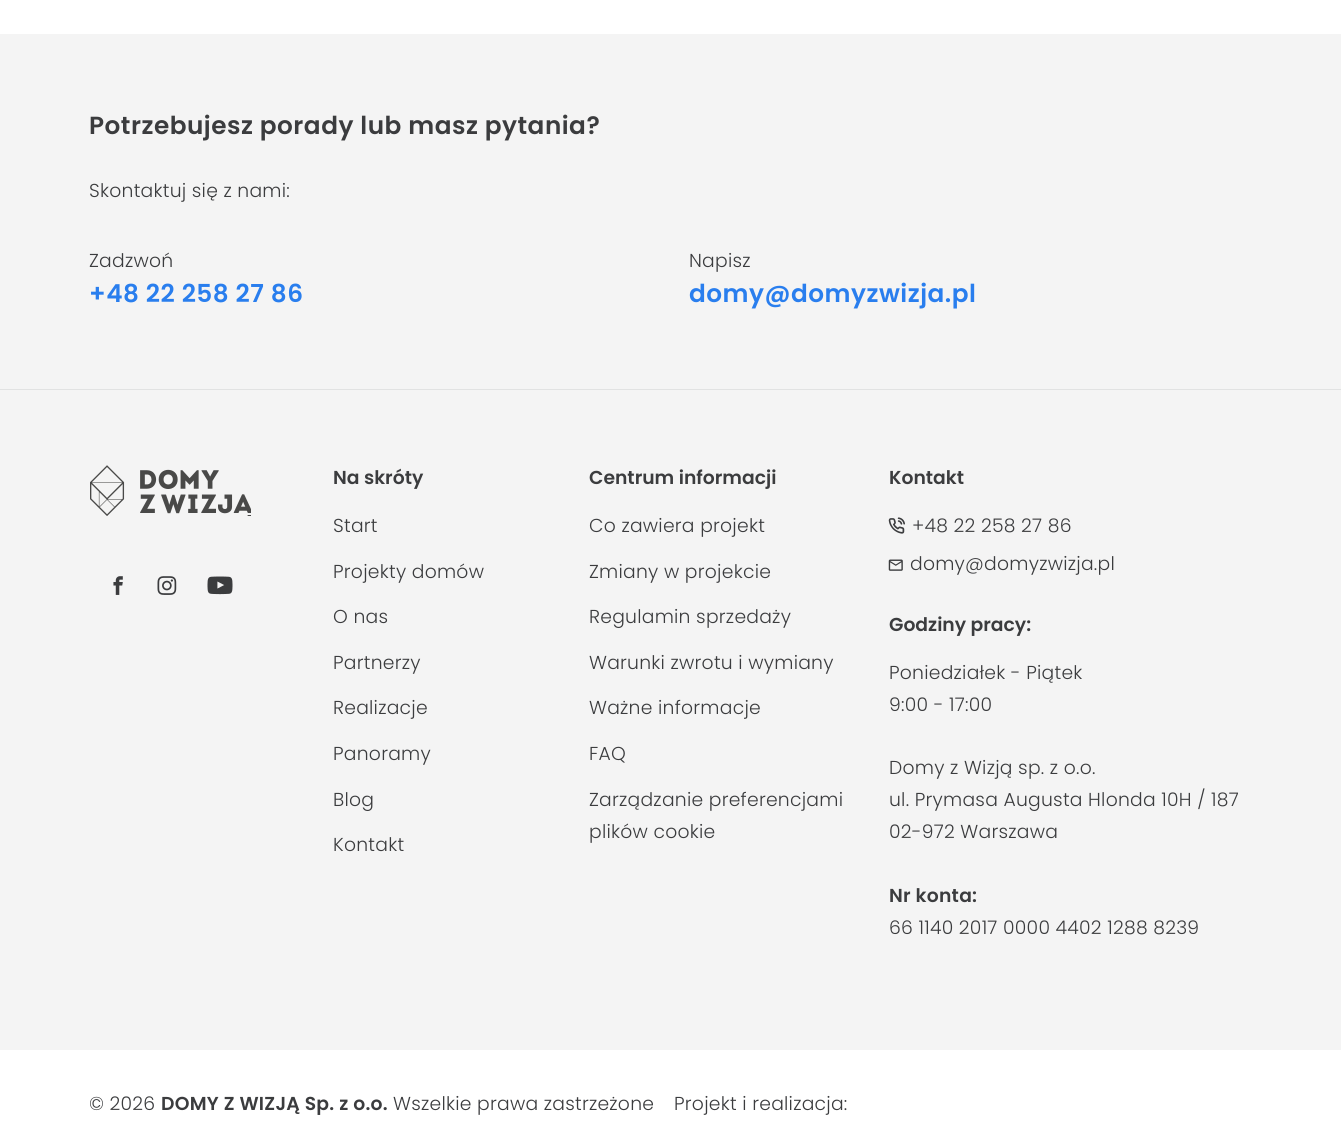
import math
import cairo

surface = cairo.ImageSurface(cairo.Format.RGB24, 1341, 1138)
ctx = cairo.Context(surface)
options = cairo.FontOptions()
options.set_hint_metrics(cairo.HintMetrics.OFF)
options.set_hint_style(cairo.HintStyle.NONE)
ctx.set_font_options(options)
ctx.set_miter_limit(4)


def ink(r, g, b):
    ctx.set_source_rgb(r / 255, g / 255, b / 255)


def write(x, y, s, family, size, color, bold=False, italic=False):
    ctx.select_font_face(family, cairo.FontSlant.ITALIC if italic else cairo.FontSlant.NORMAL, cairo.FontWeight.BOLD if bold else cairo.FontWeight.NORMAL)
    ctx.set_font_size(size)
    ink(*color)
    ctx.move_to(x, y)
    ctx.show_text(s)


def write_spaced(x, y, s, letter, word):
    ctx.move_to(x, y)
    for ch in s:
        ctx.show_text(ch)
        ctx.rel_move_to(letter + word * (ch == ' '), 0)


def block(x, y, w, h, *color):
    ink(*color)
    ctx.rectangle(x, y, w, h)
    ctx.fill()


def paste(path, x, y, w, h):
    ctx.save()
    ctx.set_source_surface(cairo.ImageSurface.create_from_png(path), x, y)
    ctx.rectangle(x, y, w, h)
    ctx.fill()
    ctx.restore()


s1 = dict(family="Poppins SemiBold", size=18.75, color=(59, 60, 62))

ink(255, 255, 255)
ctx.paint()
block(0, 34, 1341, 1016, 244, 244, 244)
ctx.select_font_face("Poppins SemiBold")
ctx.set_font_size(24.75)
ink(59, 60, 62)
write_spaced(89, 134, "Potrzebujesz porady lub masz pytania?", 0.5, 0)
ctx.select_font_face("Poppins Light")
ctx.set_font_size(18.75)
write_spaced(89, 197, "Skontaktuj się z nami:", 0.25, 0)
write_spaced(89, 267, "Zadzwoń", 0.25, 0)
ctx.select_font_face("Poppins SemiBold")
ctx.set_font_size(24.75)
ink(41, 126, 238)
write_spaced(89, 302, "+48 22 258 27 86", 0.5, 0)
ctx.select_font_face("Poppins Light")
ctx.set_font_size(18.75)
ink(59, 60, 62)
write_spaced(689, 267, "Napisz", 0.25, 0)
ctx.select_font_face("Poppins SemiBold")
ctx.set_font_size(24.75)
ink(41, 126, 238)
write_spaced(689, 302, "domy@domyzwizja.pl", 0.5, 0)
block(0, 389, 1341, 1, 225, 226, 226)
paste("pic1.png", 90, 465, 161, 51)
paste("pic2.png", 113, 576, 10, 19)
paste("pic3.png", 157, 576, 20, 19)
paste("pic4.png", 207, 576, 26, 19)
write(333, 484, "Na skróty", **s1)
ctx.select_font_face("Poppins Light")
write_spaced(333, 532, "Start", 0.25, 0)
write_spaced(333, 578, "Projekty domów", 0.25, 0)
write_spaced(333, 623, "O nas", 0.25, 0)
write_spaced(333, 669, "Partnerzy", 0.25, 0)
write_spaced(333, 714, "Realizacje", 0.25, 0)
write_spaced(333, 760, "Panoramy", 0.25, 0)
write_spaced(333, 806, "Blog", 0.25, 0)
write_spaced(333, 851, "Kontakt", 0.25, 0)
write(589, 484, "Centrum informacji", **s1)
ctx.select_font_face("Poppins Light")
write_spaced(589, 532, "Co zawiera projekt", 0.25, 0)
write_spaced(589, 578, "Zmiany w projekcie", 0.25, 0)
write_spaced(589, 623, "Regulamin sprzedaży", 0.25, 0)
write_spaced(589, 669, "Warunki zwrotu i wymiany", 0.25, 0)
write_spaced(589, 714, "Ważne informacje", 0.25, 0)
write_spaced(589, 760, "FAQ", 0.25, 0)
write_spaced(589, 806, "Zarządzanie preferencjami", 0.25, 0)
write_spaced(589, 838, "plików cookie", 0.25, 0)
write(889, 484, "Kontakt", **s1)
paste("pic5.png", 888, 517, 17, 17)
ctx.select_font_face("Poppins Light")
write_spaced(912, 532, "+48 22 258 27 86", 0.25, 0)
paste("pic6.png", 888, 559, 15, 12)
write_spaced(910, 570, "domy@domyzwizja.pl", 0.25, 0)
write(889, 631, "Godziny pracy:", **s1)
ctx.select_font_face("Poppins Light")
write_spaced(889, 679, "Poniedziałek - Piątek", 0.25, 0)
write_spaced(889, 711, "9:00 - 17:00", 0.25, 0)
write_spaced(889, 774, "Domy z Wizją sp. z o.o.", 0.25, 0)
write_spaced(889, 806, "ul. Prymasa Augusta Hlonda 10H / 187", 0.25, 0)
write_spaced(889, 838, "02-972 Warszawa", 0.25, 0)
ctx.select_font_face("Poppins SemiBold")
write_spaced(889, 902, "Nr konta:", 0.25, 0)
ctx.select_font_face("Poppins Light")
write_spaced(889, 934, "66 1140 2017 0000 4402 1288 8239", 0.25, 0)
write_spaced(89, 1110, "© 2026", 0.25, 0)
ctx.select_font_face("Poppins SemiBold")
write_spaced(161, 1110, "DOMY Z WIZJĄ Sp. z o.o.", 0.25, 0)
ctx.select_font_face("Poppins Light")
write_spaced(393, 1110, "Wszelkie prawa zastrzeżone", 0.25, 0)
write_spaced(674, 1110, "Projekt i realizacja:", 0.25, 0)
surface.write_to_png("screenshot.png")
